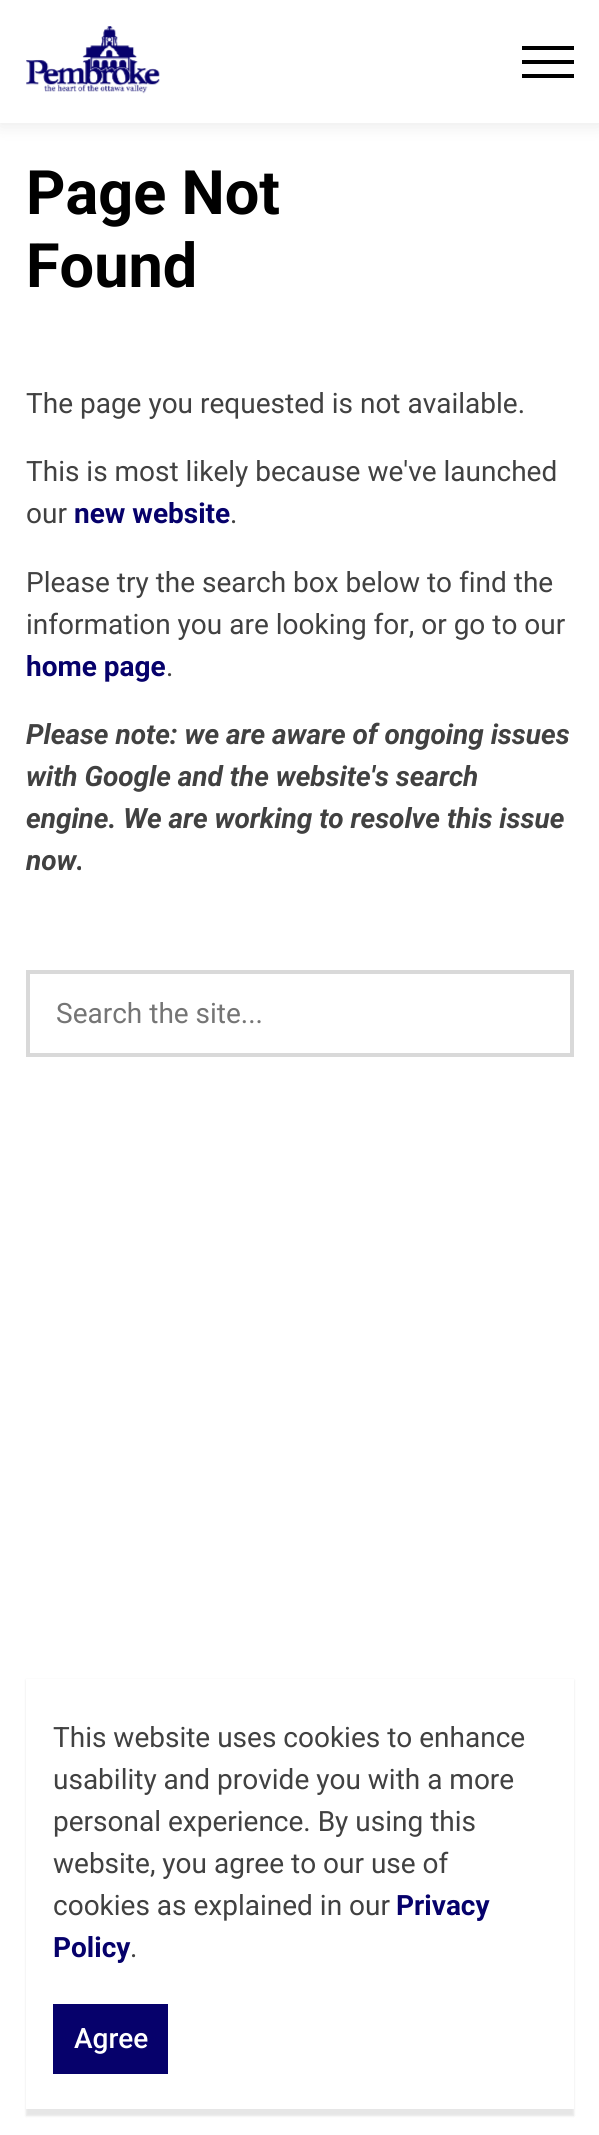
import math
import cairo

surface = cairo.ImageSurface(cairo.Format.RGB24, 599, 2135)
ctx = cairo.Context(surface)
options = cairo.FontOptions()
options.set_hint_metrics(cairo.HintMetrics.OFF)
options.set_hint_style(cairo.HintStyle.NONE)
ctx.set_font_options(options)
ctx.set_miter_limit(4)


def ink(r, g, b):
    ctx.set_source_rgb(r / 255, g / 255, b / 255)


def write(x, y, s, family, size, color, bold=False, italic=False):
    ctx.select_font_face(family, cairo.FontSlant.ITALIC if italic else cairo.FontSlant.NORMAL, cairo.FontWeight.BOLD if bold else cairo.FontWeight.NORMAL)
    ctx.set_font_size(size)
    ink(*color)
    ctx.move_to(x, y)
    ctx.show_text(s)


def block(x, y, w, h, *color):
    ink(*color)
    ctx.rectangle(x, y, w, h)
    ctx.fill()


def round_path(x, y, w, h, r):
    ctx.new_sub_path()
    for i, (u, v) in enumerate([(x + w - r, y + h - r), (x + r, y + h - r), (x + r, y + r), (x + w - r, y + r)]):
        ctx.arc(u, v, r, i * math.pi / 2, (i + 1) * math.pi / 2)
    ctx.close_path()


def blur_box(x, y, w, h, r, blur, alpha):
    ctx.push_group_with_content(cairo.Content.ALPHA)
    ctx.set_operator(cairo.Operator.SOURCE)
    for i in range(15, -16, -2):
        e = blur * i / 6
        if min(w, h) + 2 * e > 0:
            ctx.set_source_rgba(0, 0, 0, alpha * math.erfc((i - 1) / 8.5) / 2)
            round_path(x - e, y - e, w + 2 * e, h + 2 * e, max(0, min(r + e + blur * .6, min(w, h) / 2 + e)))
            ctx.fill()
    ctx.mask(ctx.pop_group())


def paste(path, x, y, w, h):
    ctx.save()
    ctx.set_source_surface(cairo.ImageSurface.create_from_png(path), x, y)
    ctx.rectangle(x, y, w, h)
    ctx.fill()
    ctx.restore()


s1 = dict(family="Roboto", size=61.25, color=(0, 0, 0), bold=True)
s2 = dict(family="Roboto", size=28, color=(65, 65, 65))
s3 = dict(family="Roboto", size=28, color=(6, 1, 107), bold=True)
s4 = dict(family="Roboto", size=28, color=(65, 65, 65), bold=True, italic=True)
s5 = dict(family="Roboto", size=28, color=(117, 117, 117))
s6 = dict(family="Roboto Medium", size=28, color=(255, 255, 255))

ink(255, 255, 255)
ctx.paint()
ink(0, 0, 0)
blur_box(0, 2, 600, 122, 0, 9, 0.1)
block(0, 0, 599, 123, 255, 255, 255)
paste("pic1.png", 26, 26, 134, 68)
block(522, 60, 52, 4, 0, 0, 0)
block(522, 46, 52, 4, 0, 0, 0)
block(522, 74, 52, 4, 0, 0, 0)
write(26, 214, "Page Not", **s1)
write(26, 287, "Found", **s1)
write(26, 413, "The page you requested is not available.", **s2)
write(26, 481, "This is most likely because we've launched", **s2)
write(26, 523, "our", **s2)
write(74, 523, "new website", **s3)
write(230, 523, ".", **s2)
write(26, 592, "Please try the search box below to find the", **s2)
write(26, 634, "information you are looking for, or go to our", **s2)
write(26, 676, "home page", **s3)
write(166, 676, ".", **s2)
write(26, 744, "Please note: we are aware of ongoing issues", **s4)
write(26, 786, "with Google and the website's search", **s4)
write(26, 828, "engine. We are working to resolve this issue", **s4)
write(26, 870, "now.", **s4)
ctx.rectangle(28, 972, 544, 83)
ink(217, 217, 217)
ctx.set_line_width(4)
ctx.stroke()
write(56, 1023, "Search the site...", **s5)
ink(0, 0, 0)
blur_box(26, 1680, 548, 436, 0, 1, 0.1)
block(26, 1679, 548, 430, 255, 255, 255)
write(53, 1747, "This website uses cookies to enhance", **s2)
write(53, 1789, "usability and provide you with a more", **s2)
write(53, 1831, "personal experience. By using this", **s2)
write(53, 1873, "website, you agree to our use of", **s2)
write(53, 1915, "cookies as explained in our", **s2)
write(396, 1915, "Privacy", **s3)
write(53, 1957, "Policy", **s3)
write(130, 1957, ".", **s2)
block(53, 2004, 115, 70, 6, 1, 107)
write(74, 2048, "Agree", **s6)
surface.write_to_png("screenshot.png")
